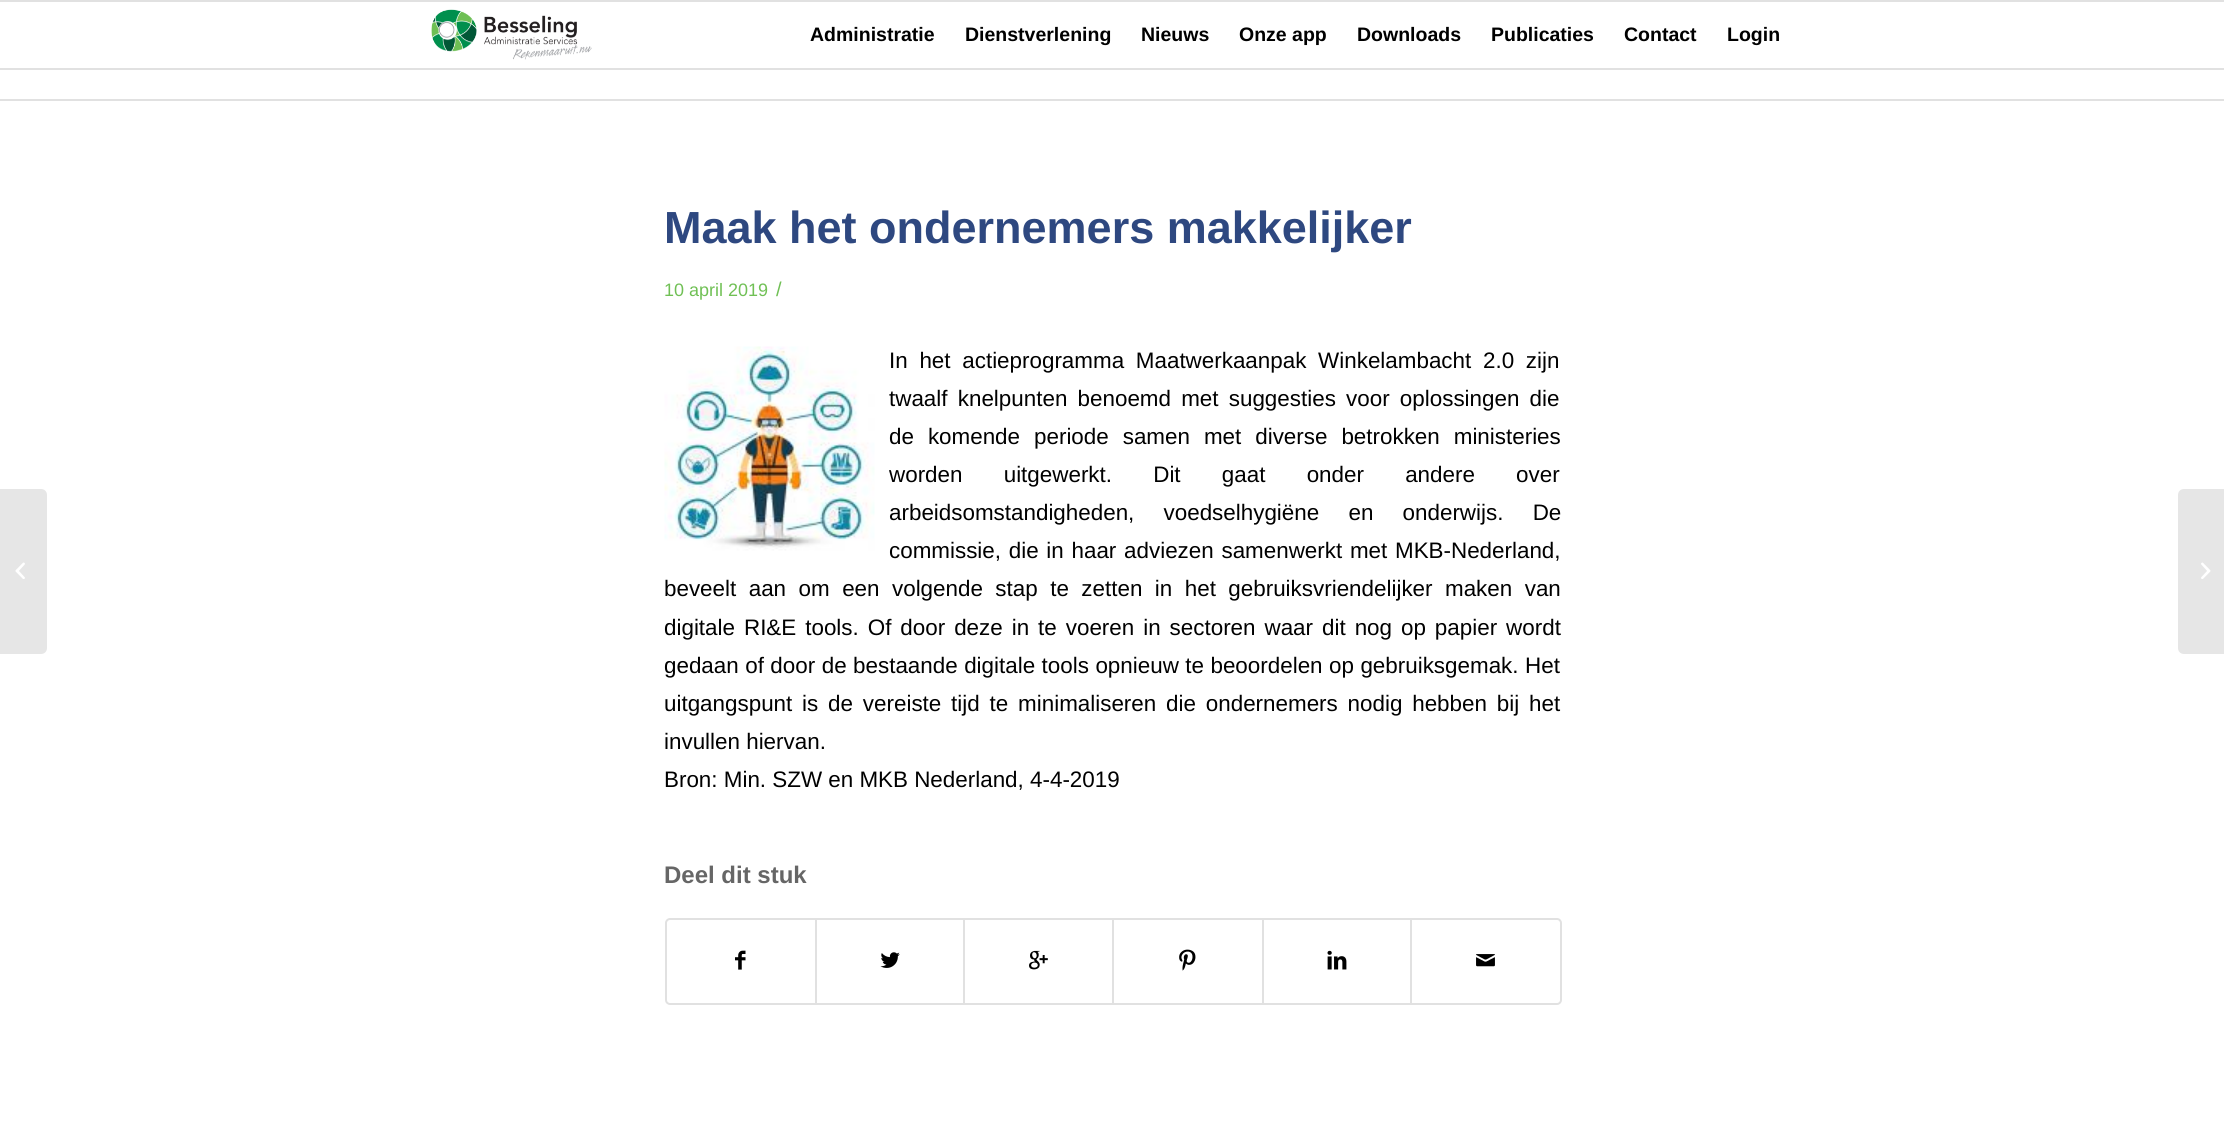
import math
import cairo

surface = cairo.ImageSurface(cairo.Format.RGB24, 2224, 1143)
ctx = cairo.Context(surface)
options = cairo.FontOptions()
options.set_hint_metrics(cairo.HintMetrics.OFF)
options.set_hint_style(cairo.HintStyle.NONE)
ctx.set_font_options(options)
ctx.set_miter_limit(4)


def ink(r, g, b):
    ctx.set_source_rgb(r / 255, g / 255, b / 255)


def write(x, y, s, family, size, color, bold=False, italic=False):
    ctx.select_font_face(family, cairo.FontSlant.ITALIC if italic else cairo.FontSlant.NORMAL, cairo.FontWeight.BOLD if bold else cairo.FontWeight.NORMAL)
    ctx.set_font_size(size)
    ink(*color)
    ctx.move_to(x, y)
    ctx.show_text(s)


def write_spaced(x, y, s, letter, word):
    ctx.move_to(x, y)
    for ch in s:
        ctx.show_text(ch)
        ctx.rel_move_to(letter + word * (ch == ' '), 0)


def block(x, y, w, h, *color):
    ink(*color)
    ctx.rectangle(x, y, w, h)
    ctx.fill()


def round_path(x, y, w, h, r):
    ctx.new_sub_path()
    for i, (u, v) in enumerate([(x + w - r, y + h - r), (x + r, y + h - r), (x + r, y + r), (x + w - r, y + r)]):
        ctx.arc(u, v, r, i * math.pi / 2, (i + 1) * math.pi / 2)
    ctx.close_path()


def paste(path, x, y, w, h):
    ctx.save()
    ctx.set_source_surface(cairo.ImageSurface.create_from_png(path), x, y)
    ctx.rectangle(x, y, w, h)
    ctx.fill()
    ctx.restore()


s1 = dict(family="Liberation Sans", size=19.5, color=(0, 0, 0), bold=True)
s2 = dict(family="Liberation Sans", size=45, color=(46, 72, 128), bold=True)
s3 = dict(family="Liberation Sans", size=18, color=(112, 192, 85))
s4 = dict(family="Liberation Sans", size=20, color=(112, 192, 85))
s5 = dict(family="Liberation Sans", size=22.4, color=(0, 0, 0))
s6 = dict(family="Liberation Sans", size=24, color=(102, 102, 102), bold=True)

ink(255, 255, 255)
ctx.paint()
block(0, 0, 2224, 2, 225, 225, 225)
block(0, 68, 2224, 2, 225, 225, 225)
paste("pic1.png", 431, 9, 161, 51)
write(810, 41, "Administratie", **s1)
write(965, 41, "Dienstverlening", **s1)
write(1141, 41, "Nieuws", **s1)
write(1239, 41, "Onze app", **s1)
write(1357, 41, "Downloads", **s1)
write(1491, 41, "Publicaties", **s1)
write(1624, 41, "Contact", **s1)
write(1727, 41, "Login", **s1)
ink(230, 230, 230)
ctx.new_path()
ctx.move_to(0, 489)
ctx.line_to(41, 489)
ctx.curve_to(44.5, 489, 47, 491.5, 47, 495)
ctx.line_to(47, 648)
ctx.curve_to(47, 651.5, 44.5, 654, 41, 654)
ctx.line_to(0, 654)
ctx.close_path()
ctx.fill()
paste("pic2.png", 15, 562, 10, 17)
block(0, 99, 2224, 2, 225, 225, 225)
write(664, 243, "Maak het ondernemers makkelijker", **s2)
write(664, 296, "10 april 2019", **s3)
write(776, 296, "/", **s4)
paste("pic3.png", 664, 346, 211, 205)
ctx.set_font_size(22.4)
ink(0, 0, 0)
write_spaced(889, 368, "In het actieprogramma Maatwerkaanpak Winkelambacht 2.0 zijn", 0, 5.5)
write_spaced(889, 406, "twaalf knelpunten benoemd met suggesties voor oplossingen die", 0, 4)
write_spaced(889, 444, "de komende periode samen met diverse betrokken ministeries", 0, 7.75)
write_spaced(889, 482, "worden uitgewerkt. Dit gaat onder andere over", 0, 35)
write_spaced(889, 520, "arbeidsomstandigheden, voedselhygiëne en onderwijs. De", 0, 23)
write_spaced(889, 558, "commissie, die in haar adviezen samenwerkt met MKB-Nederland,", 0, 1.5)
write_spaced(664, 596, "beveelt aan om een volgende stap te zetten in het gebruiksvriendelijker maken van", 0, 6.25)
write_spaced(664, 635, "digitale RI&E tools. Of door deze in te voeren in sectoren waar dit nog op papier wordt", 0, 2.75)
write_spaced(664, 673, "gedaan of door de bestaande digitale tools opnieuw te beoordelen op gebruiksgemak. Het", 0, 0.25)
write_spaced(664, 711, "uitgangspunt is de vereiste tijd te minimaliseren die ondernemers nodig hebben bij het", 0, 3.6)
write(664, 749, "invullen hiervan.", **s5)
write(664, 787, "Bron: Min. SZW en MKB Nederland, 4-4-2019", **s5)
write(664, 883, "Deel dit stuk", **s6)
round_path(666, 919, 895, 85, 4)
ink(225, 225, 225)
ctx.stroke()
paste("pic4.png", 735, 950, 11, 20)
block(815, 920, 2, 84, 225, 225, 225)
paste("pic5.png", 880, 952, 20, 16)
block(963, 920, 2, 84, 225, 225, 225)
paste("pic6.png", 1029, 950, 19, 20)
block(1112, 920, 2, 84, 225, 225, 225)
paste("pic7.png", 1179, 949, 17, 22)
block(1262, 920, 2, 84, 225, 225, 225)
paste("pic8.png", 1327, 950, 20, 20)
block(1410, 920, 2, 84, 225, 225, 225)
paste("pic9.png", 1476, 954, 19, 13)
ink(230, 230, 230)
ctx.new_path()
ctx.move_to(2184, 489)
ctx.line_to(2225, 489)
ctx.line_to(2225, 654)
ctx.line_to(2184, 654)
ctx.curve_to(2180.5, 654, 2178, 651.5, 2178, 648)
ctx.line_to(2178, 495)
ctx.curve_to(2178, 491.5, 2180.5, 489, 2184, 489)
ctx.close_path()
ctx.fill()
paste("pic10.png", 2201, 562, 10, 17)
surface.write_to_png("screenshot.png")
